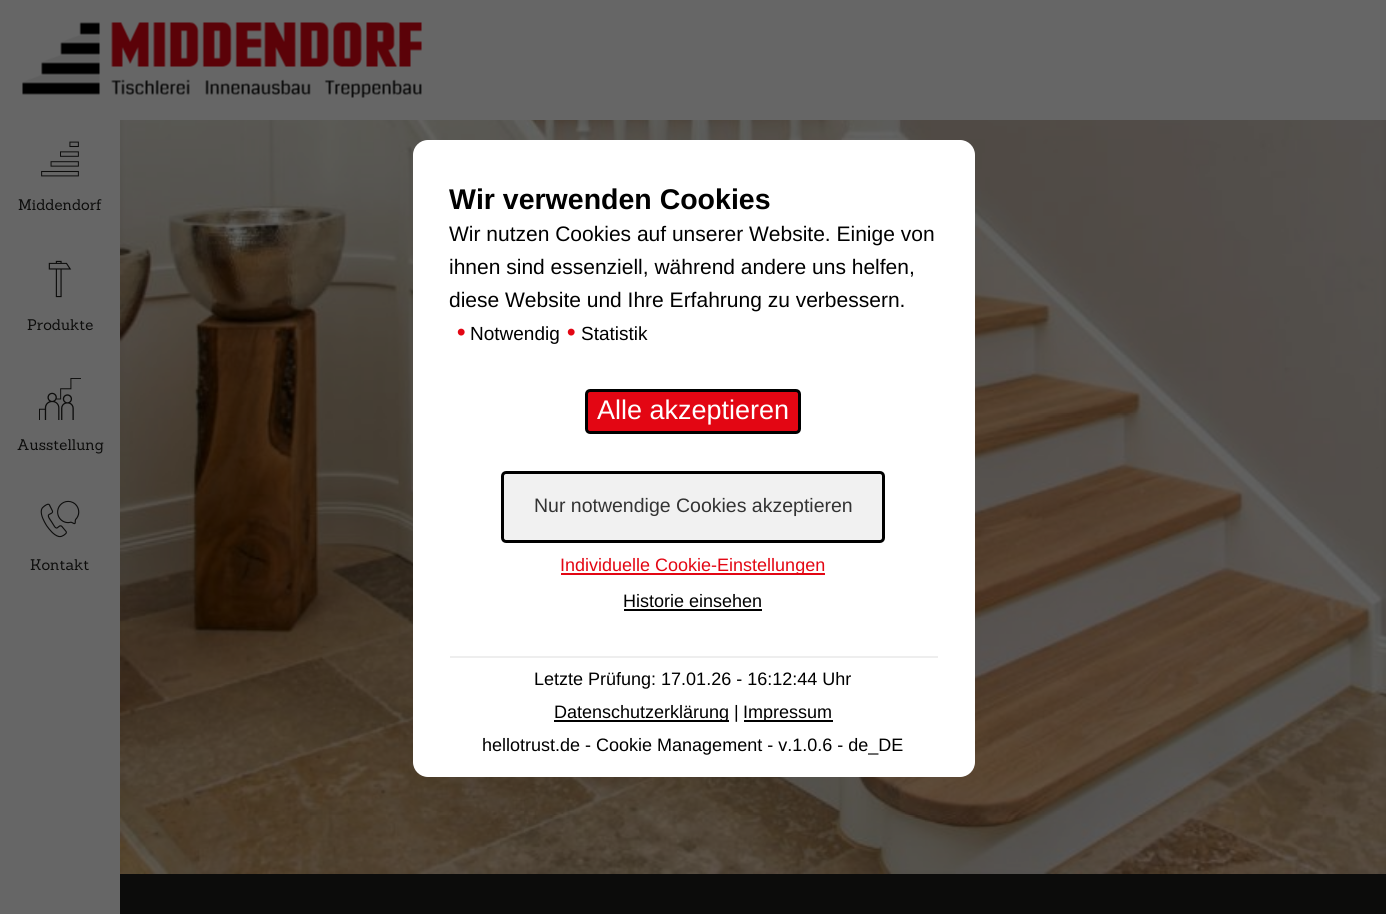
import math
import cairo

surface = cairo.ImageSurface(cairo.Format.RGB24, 1386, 914)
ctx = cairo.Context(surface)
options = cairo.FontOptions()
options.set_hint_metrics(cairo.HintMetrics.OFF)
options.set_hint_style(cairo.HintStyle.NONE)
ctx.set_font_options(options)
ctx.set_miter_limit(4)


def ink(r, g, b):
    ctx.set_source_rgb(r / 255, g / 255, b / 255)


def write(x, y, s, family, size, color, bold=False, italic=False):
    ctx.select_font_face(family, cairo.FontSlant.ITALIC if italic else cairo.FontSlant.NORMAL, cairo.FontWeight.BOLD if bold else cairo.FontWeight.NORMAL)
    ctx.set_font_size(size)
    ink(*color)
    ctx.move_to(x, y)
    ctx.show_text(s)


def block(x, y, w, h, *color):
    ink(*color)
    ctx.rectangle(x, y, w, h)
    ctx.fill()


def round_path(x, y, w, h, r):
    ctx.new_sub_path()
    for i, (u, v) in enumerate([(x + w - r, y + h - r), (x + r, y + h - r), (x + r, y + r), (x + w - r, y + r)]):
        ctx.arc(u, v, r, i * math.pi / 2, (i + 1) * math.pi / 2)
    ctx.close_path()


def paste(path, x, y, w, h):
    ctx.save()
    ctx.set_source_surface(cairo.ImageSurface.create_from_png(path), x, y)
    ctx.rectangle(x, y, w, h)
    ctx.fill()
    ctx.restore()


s1 = dict(family="Sanchez", size=15, color=(12, 12, 11))
s2 = dict(family="Liberation Sans", size=28.5, color=(0, 0, 0), bold=True)
s3 = dict(family="Liberation Sans", size=21, color=(0, 0, 0))
s4 = dict(family="Liberation Sans", size=24, color=(227, 6, 19), bold=True)
s5 = dict(family="Liberation Sans", size=19, color=(0, 0, 0))
s6 = dict(family="Liberation Sans", size=27, color=(255, 255, 255))
s7 = dict(family="Liberation Sans", size=19.5, color=(51, 51, 51))
s8 = dict(family="Liberation Sans", size=18, color=(227, 6, 19))
s9 = dict(family="Liberation Sans", size=18, color=(0, 0, 0))

ink(12, 12, 11)
ctx.paint()
block(0, 0, 1386, 120, 102, 102, 102)
paste("pic1.png", 22, 22, 400, 76)
block(0, 120, 120, 794, 102, 102, 102)
paste("pic2.png", 41, 141, 38, 36)
write(18, 210, "Middendorf", **s1)
paste("pic3.png", 48, 260, 24, 38)
write(27, 330, "Produkte", **s1)
paste("pic4.png", 39, 378, 42, 42)
write(17, 450, "Ausstellung", **s1)
paste("pic5.png", 40, 500, 40, 38)
write(30, 570, "Kontakt", **s1)
paste("pic6.png", 120, 120, 1266, 754)
ink(255, 255, 255)
round_path(413, 140, 562, 637, 15)
ctx.fill()
write(449, 209, "Wir verwenden Cookies", **s2)
write(449, 241, "Wir nutzen Cookies auf unserer Website. Einige von", **s3)
write(449, 274, "ihnen sind essenziell, während andere uns helfen,", **s3)
write(449, 307, "diese Website und Ihre Erfahrung zu verbessern.", **s3)
write(457, 340, "•", **s4)
write(470, 340, "Notwendig", **s5)
write(567, 340, "•", **s4)
write(581, 340, "Statistik", **s5)
ink(227, 6, 19)
round_path(586.5, 390.5, 213, 42, 3.5)
ctx.fill_preserve()
ink(0, 0, 0)
ctx.set_line_width(3)
ctx.stroke()
write(597, 419, "Alle akzeptieren", **s6)
ink(241, 241, 241)
round_path(502.5, 472.5, 381, 69, 3.5)
ctx.fill_preserve()
ink(0, 0, 0)
ctx.stroke()
write(534, 512, "Nur notwendige Cookies akzeptieren", **s7)
block(561, 573, 264, 2, 227, 6, 19)
write(560, 571, "Individuelle Cookie-Einstellungen", **s8)
write(623, 607, "Historie einsehen", **s9)
block(624, 609, 138, 2, 0, 0, 0)
block(450, 656, 488, 2, 238, 238, 238)
write(534, 685, "Letzte Prüfung: 17.01.26 - 16:12:44 Uhr", **s9)
block(554, 720, 175, 2, 0, 0, 0)
write(554, 718, "Datenschutzerklärung |", **s9)
block(744, 720, 89, 2, 0, 0, 0)
write(743, 718, "Impressum", **s9)
write(482, 751, "hellotrust.de - Cookie Management - v.1.0.6 - de_DE", **s9)
surface.write_to_png("screenshot.png")
